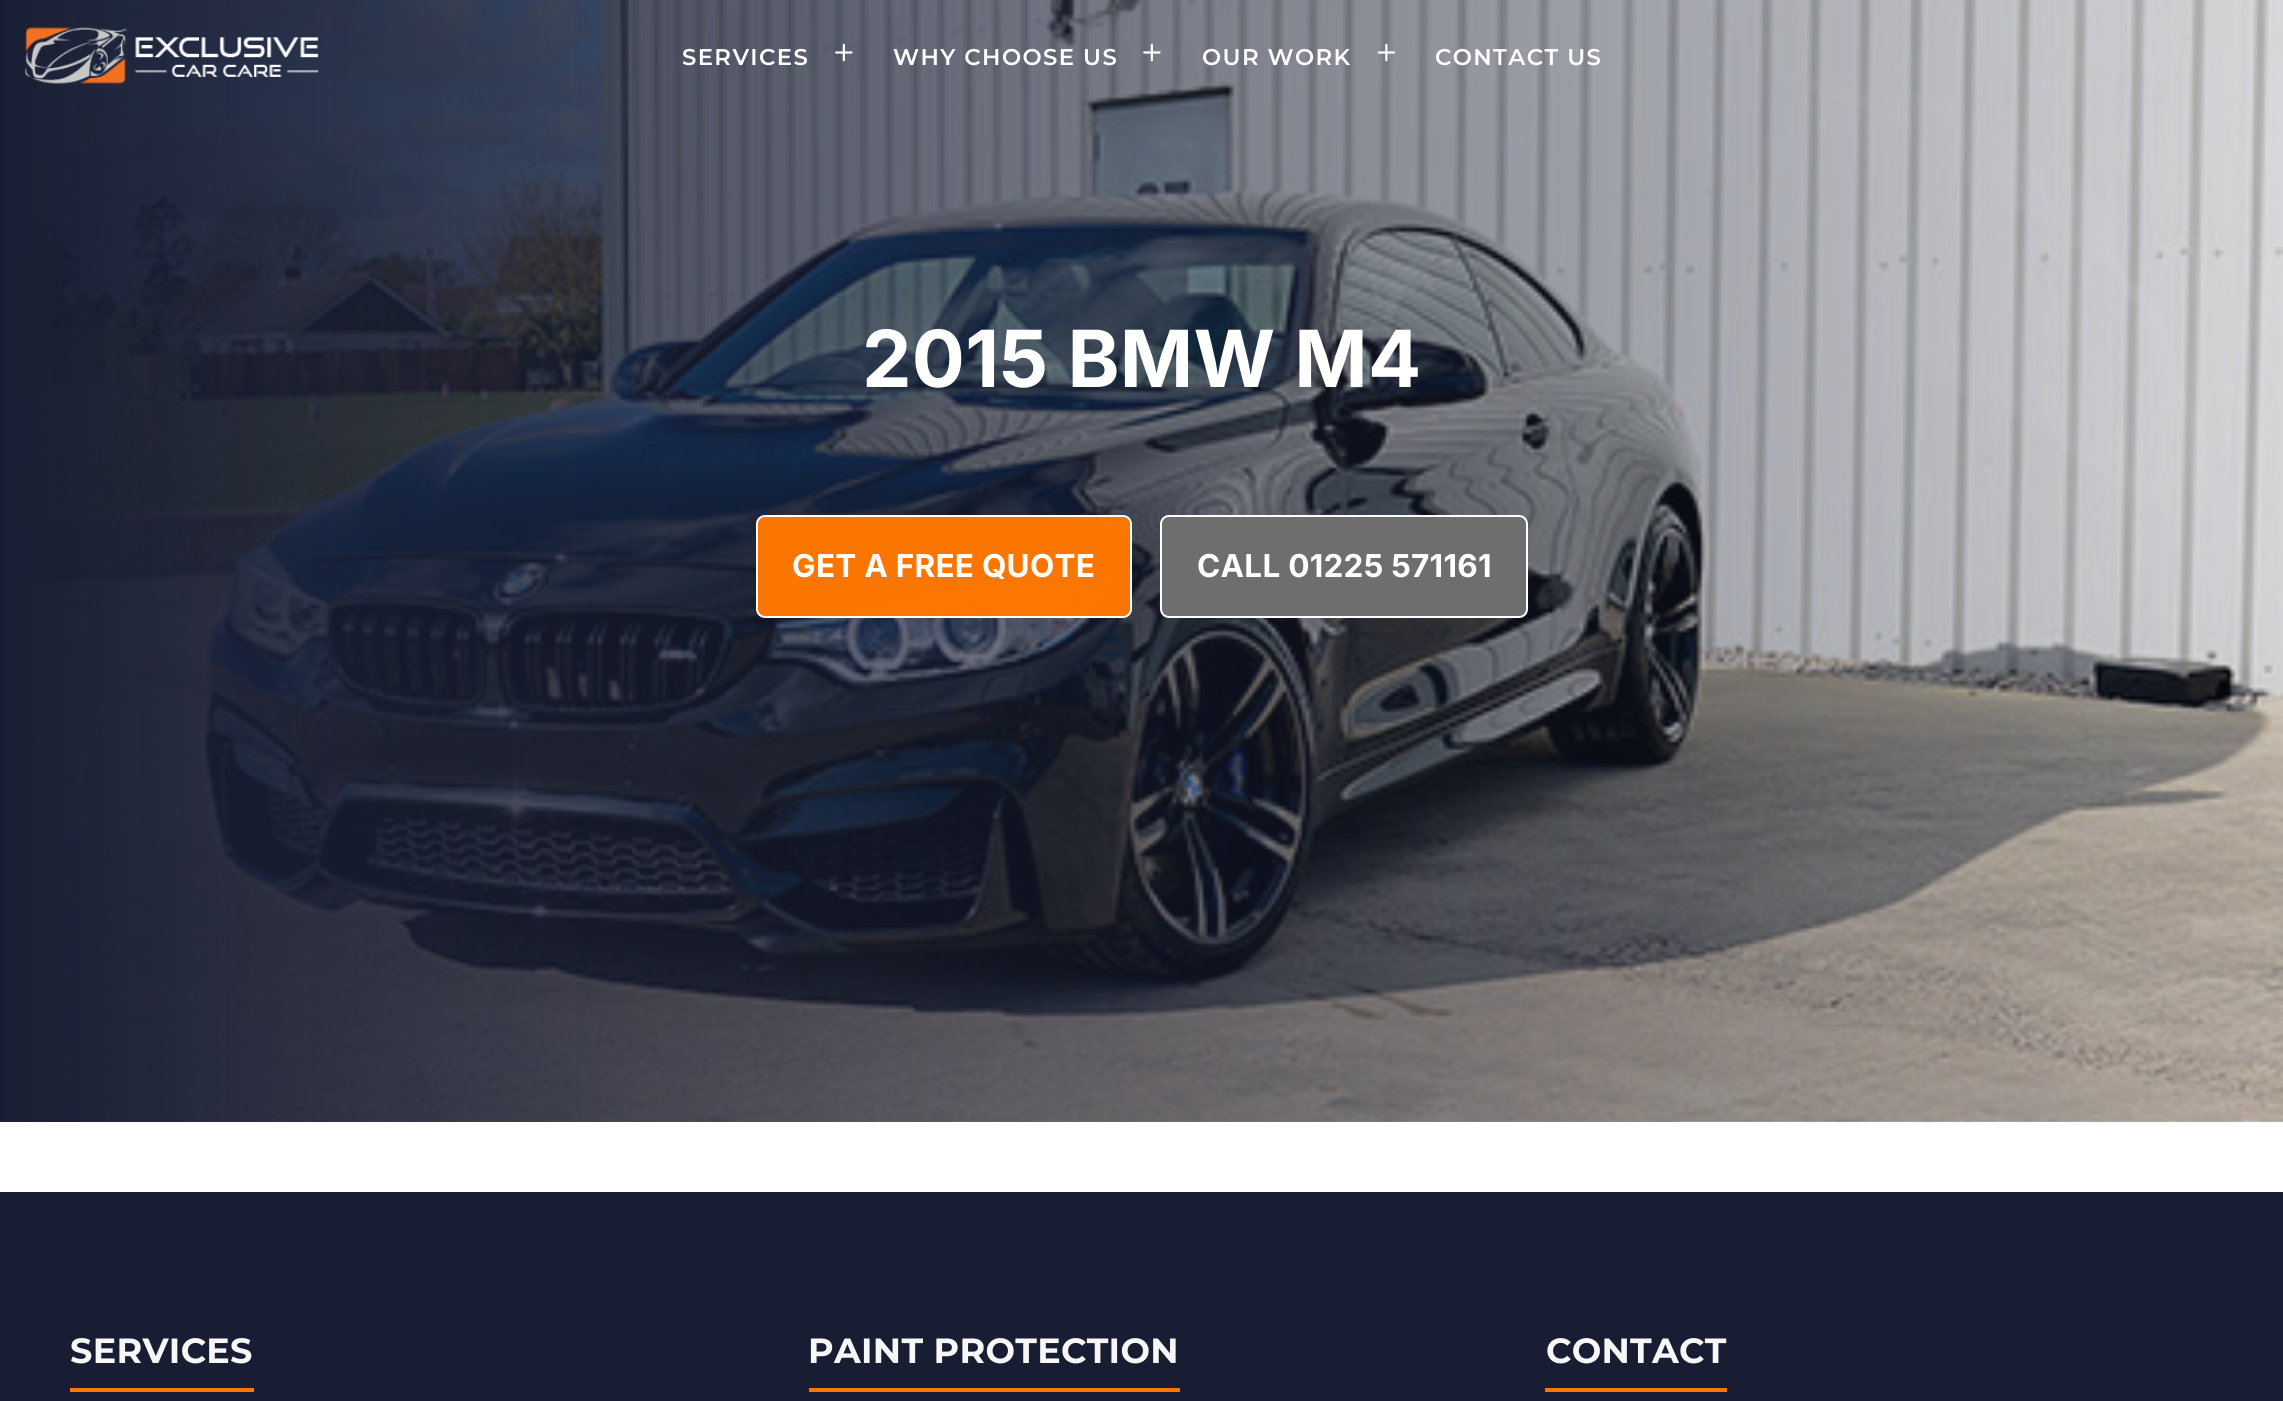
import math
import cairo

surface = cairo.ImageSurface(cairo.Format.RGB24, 2283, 1401)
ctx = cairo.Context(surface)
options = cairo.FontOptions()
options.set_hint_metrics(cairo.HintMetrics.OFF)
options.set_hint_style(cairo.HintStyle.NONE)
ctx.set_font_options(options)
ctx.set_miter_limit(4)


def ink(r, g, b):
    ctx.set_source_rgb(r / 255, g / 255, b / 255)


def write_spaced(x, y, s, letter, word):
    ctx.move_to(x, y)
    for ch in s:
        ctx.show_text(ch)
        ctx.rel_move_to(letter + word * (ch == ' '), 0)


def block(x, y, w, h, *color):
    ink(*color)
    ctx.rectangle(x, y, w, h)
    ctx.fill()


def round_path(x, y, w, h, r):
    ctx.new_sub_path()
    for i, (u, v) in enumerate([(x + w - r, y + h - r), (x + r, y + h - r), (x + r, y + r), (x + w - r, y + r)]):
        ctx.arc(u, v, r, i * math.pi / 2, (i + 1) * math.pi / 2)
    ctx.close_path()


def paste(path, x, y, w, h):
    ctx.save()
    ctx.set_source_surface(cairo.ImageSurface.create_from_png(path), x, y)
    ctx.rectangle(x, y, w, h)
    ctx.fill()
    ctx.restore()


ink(255, 255, 255)
ctx.paint()
paste("pic5.png", 16, 0, 2267, 1122)
gradient = cairo.LinearGradient(0, 561, 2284, 561)
gradient.add_color_stop_rgba(0, 0.098, 0.118, 0.204, 1)
gradient.add_color_stop_rgba(1, 0.094, 0.114, 0.2, 0.16)
ctx.set_source(gradient)
ctx.rectangle(0, 0, 2283, 1122)
ctx.fill()
paste("pic1.png", 25, 27, 294, 57)
ctx.select_font_face("Montserrat SemiBold")
ctx.set_font_size(22.75)
ink(255, 255, 255)
write_spaced(682, 65, "SERVICES", 1.4, 0)
paste("pic2.png", 835, 43, 18, 19)
write_spaced(893, 65, "WHY CHOOSE US", 1.4, 0)
paste("pic3.png", 1143, 43, 18, 19)
write_spaced(1202, 65, "OUR WORK", 1.4, 0)
paste("pic4.png", 1377, 43, 19, 19)
write_spaced(1435, 65, "CONTACT US", 1.4, 0)
ctx.select_font_face("Inter", cairo.FontSlant.NORMAL, cairo.FontWeight.BOLD)
ctx.set_font_size(78.75)
write_spaced(862, 387, "2015 BMW M4", 0.25, 0)
ctx.set_source_rgba(1, 0.467, 0, 0.98)
round_path(757, 516, 374, 101, 8)
ctx.fill_preserve()
ink(255, 255, 255)
ctx.stroke()
ctx.set_font_size(31.5)
write_spaced(792, 577, "GET A FREE QUOTE", 0.25, 0)
ink(110, 110, 110)
round_path(1161, 516, 366, 101, 8)
ctx.fill_preserve()
ink(255, 255, 255)
ctx.stroke()
write_spaced(1197, 577, "CALL 01225 571161", 0.25, 0)
block(0, 1192, 2283, 209, 24, 29, 51)
block(70, 1388, 184, 4, 255, 119, 1)
ctx.select_font_face("Montserrat", cairo.FontSlant.NORMAL, cairo.FontWeight.BOLD)
ctx.set_font_size(35)
ink(247, 247, 247)
write_spaced(70, 1363, "SERVICES", 0.3, 0)
block(809, 1388, 371, 4, 255, 119, 1)
ink(247, 247, 247)
write_spaced(808, 1363, "PAINT PROTECTION", 0.3, 0)
block(1545, 1388, 182, 4, 255, 119, 1)
ink(247, 247, 247)
write_spaced(1546, 1363, "CONTACT", 0.3, 0)
surface.write_to_png("screenshot.png")
